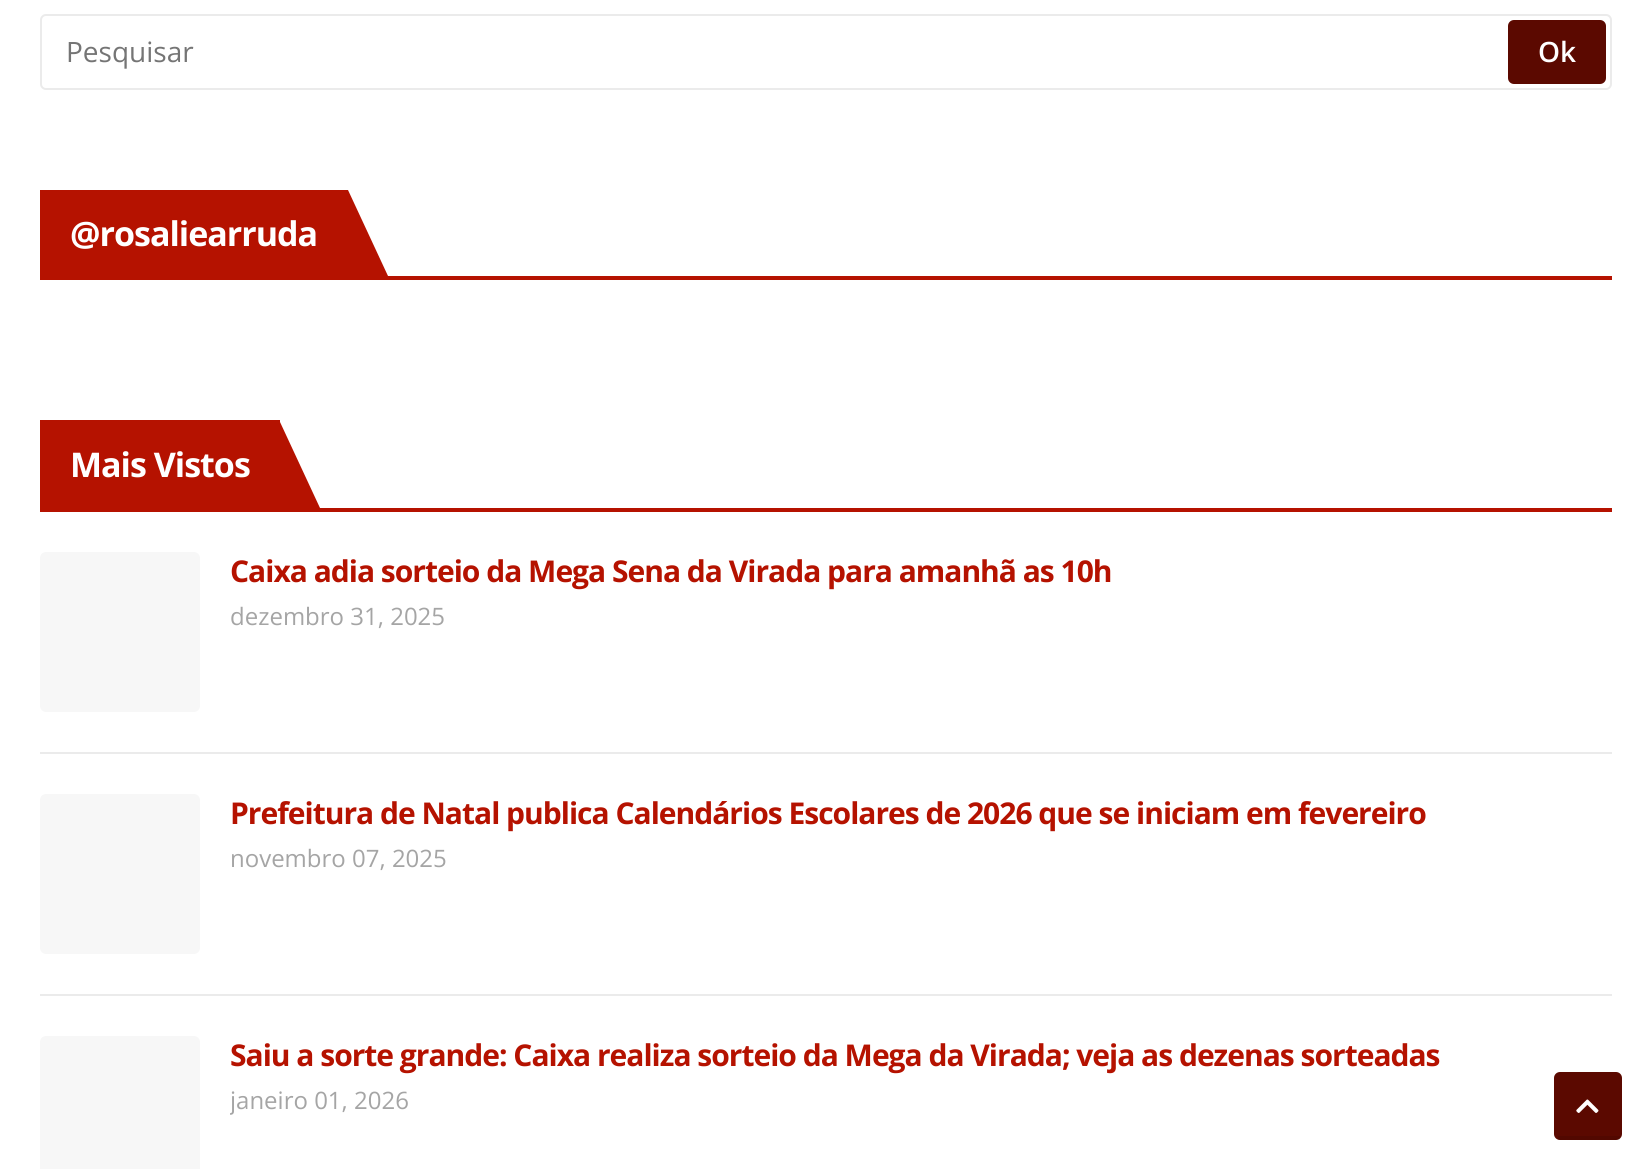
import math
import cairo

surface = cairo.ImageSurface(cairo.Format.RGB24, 1652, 1169)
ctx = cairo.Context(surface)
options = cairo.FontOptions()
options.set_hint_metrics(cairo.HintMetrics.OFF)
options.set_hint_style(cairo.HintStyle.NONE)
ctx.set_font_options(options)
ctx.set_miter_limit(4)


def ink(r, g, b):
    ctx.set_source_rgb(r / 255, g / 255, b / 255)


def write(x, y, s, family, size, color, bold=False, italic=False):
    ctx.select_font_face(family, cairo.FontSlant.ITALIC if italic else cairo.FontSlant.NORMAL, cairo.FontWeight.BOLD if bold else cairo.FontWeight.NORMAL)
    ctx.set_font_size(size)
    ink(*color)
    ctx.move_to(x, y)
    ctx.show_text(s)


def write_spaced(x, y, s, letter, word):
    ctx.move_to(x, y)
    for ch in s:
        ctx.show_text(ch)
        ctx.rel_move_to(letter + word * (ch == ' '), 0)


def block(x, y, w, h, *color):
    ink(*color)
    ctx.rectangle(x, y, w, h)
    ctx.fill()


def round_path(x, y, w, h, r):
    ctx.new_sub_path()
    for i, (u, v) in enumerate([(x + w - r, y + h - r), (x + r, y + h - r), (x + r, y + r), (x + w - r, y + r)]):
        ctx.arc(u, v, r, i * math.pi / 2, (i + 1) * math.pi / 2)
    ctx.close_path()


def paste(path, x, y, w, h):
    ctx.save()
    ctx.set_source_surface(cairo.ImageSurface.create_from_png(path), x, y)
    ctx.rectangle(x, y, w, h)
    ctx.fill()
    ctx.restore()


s1 = dict(family="Open Sans", size=28, color=(117, 117, 117))
s2 = dict(family="Open Sans SemiBold", size=28, color=(255, 255, 255))
s3 = dict(family="Open Sans", size=24, color=(165, 165, 165))

ink(255, 255, 255)
ctx.paint()
round_path(41, 15, 1570, 74, 5)
ink(235, 235, 235)
ctx.stroke()
write(66, 62, "Pesquisar", **s1)
ink(91, 9, 0)
round_path(1508, 20, 98, 64, 6)
ctx.fill()
write(1538, 62, "Ok", **s2)
block(40, 276, 1572, 4, 181, 18, 0)
block(40, 190, 308, 86, 181, 18, 0)
ctx.select_font_face("Open Sans", cairo.FontSlant.NORMAL, cairo.FontWeight.BOLD)
ctx.set_font_size(34)
ink(255, 255, 255)
write_spaced(70, 246, "@rosaliearruda", -1, 0)
ink(181, 18, 0)
ctx.new_path()
ctx.move_to(348, 276)
ctx.line_to(348, 190)
ctx.line_to(388, 276)
ctx.close_path()
ctx.fill()
block(40, 508, 1572, 4, 181, 18, 0)
block(40, 420, 240, 88, 181, 18, 0)
ink(255, 255, 255)
write_spaced(70, 477, "Mais Vistos", -1, 0)
ink(181, 18, 0)
ctx.new_path()
ctx.move_to(280, 508)
ctx.line_to(280, 422)
ctx.line_to(320, 508)
ctx.close_path()
ctx.fill()
ink(247, 247, 247)
round_path(40, 552, 160, 160, 6)
ctx.fill()
ctx.set_font_size(30)
ink(181, 18, 0)
write_spaced(230, 582, "Caixa adia sorteio da Mega Sena da Virada para amanhã as 10h", -1, 0)
write(230, 625, "dezembro 31, 2025", **s3)
block(40, 752, 1572, 2, 235, 235, 235)
ink(247, 247, 247)
round_path(40, 794, 160, 160, 6)
ctx.fill()
ctx.select_font_face("Open Sans", cairo.FontSlant.NORMAL, cairo.FontWeight.BOLD)
ctx.set_font_size(30)
ink(181, 18, 0)
write_spaced(230, 824, "Prefeitura de Natal publica Calendários Escolares de 2026 que se iniciam em fevereiro", -1, 0)
write(230, 867, "novembro 07, 2025", **s3)
block(40, 994, 1572, 2, 235, 235, 235)
ink(247, 247, 247)
round_path(40, 1036, 160, 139, 6)
ctx.fill()
ctx.select_font_face("Open Sans", cairo.FontSlant.NORMAL, cairo.FontWeight.BOLD)
ctx.set_font_size(30)
ink(181, 18, 0)
write_spaced(230, 1066, "Saiu a sorte grande: Caixa realiza sorteio da Mega da Virada; veja as dezenas sorteadas", -1, 0)
ctx.save()
ctx.rectangle(230, 1036, 1382, 84)
ctx.clip()
write(230, 1109, "janeiro 01, 2026", **s3)
ctx.restore()
ink(91, 9, 0)
round_path(1554, 1072, 68, 68, 6)
ctx.fill()
ctx.set_source_rgba(0, 0, 0, 0.1)
ctx.rectangle(1558, 1136, 62, 4)
ctx.fill()
paste("pic1.png", 1576, 1099, 23, 14)
surface.write_to_png("screenshot.png")
